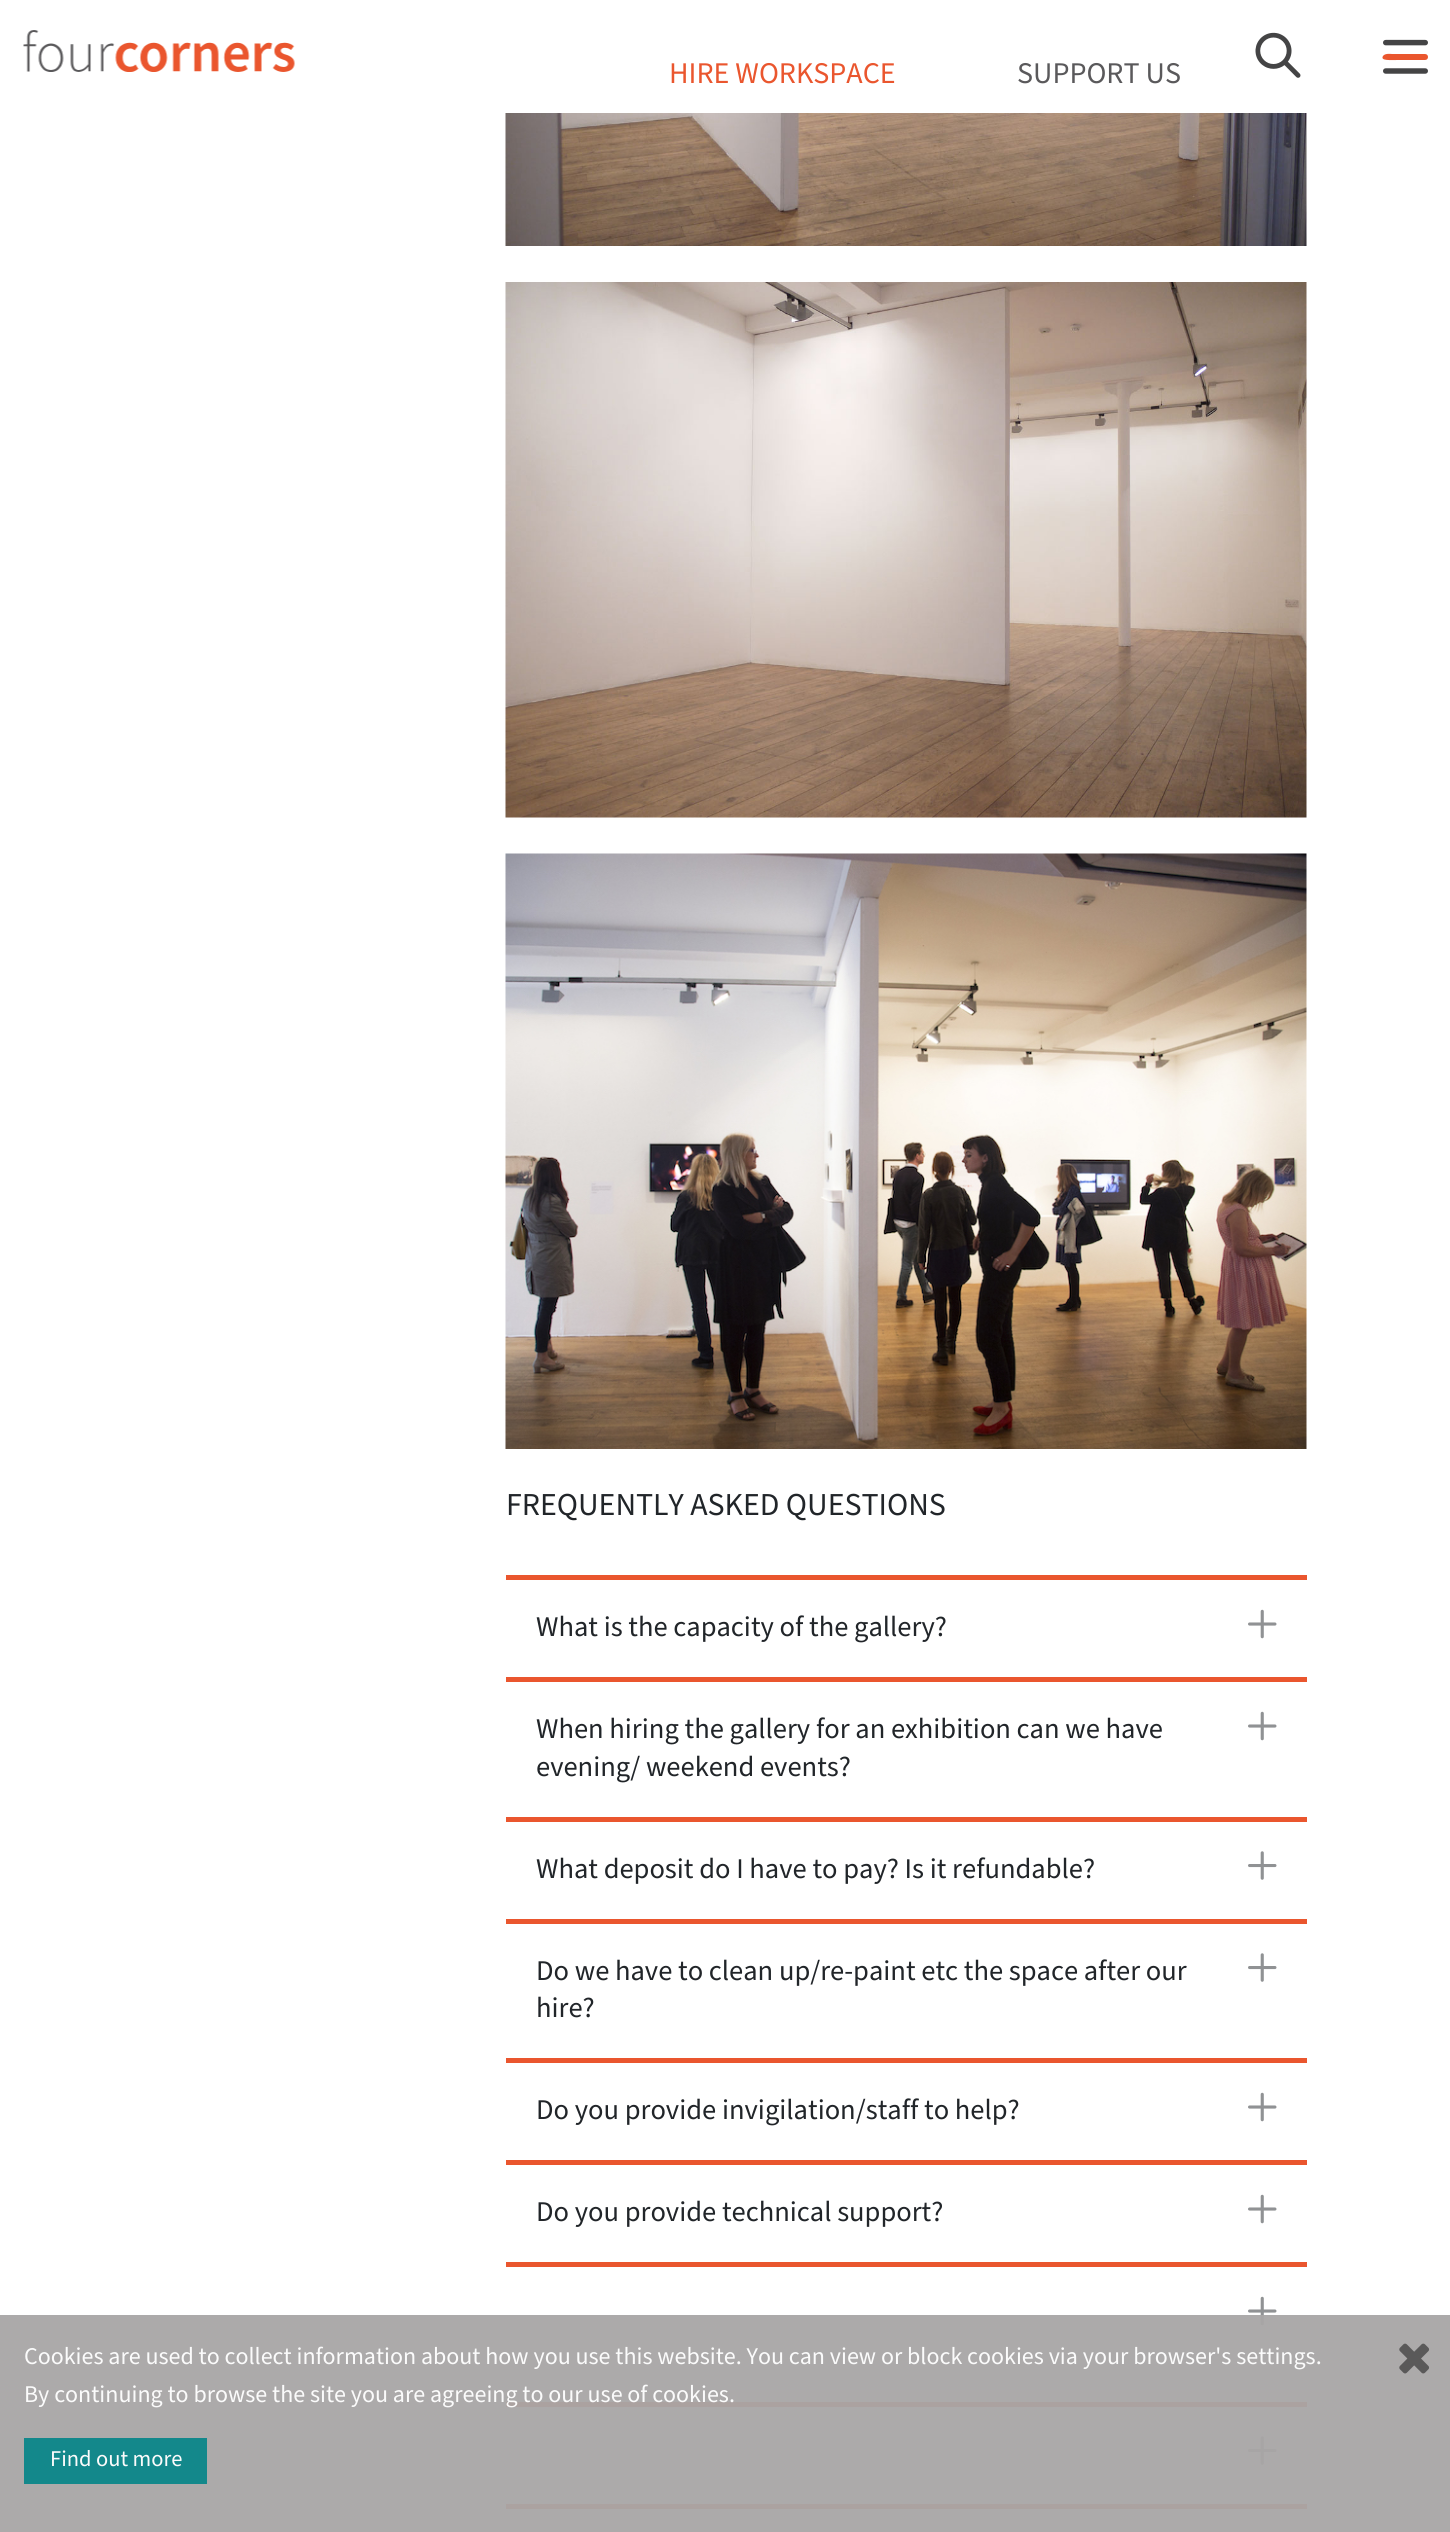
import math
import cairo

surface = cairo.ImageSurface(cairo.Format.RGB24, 1450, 2532)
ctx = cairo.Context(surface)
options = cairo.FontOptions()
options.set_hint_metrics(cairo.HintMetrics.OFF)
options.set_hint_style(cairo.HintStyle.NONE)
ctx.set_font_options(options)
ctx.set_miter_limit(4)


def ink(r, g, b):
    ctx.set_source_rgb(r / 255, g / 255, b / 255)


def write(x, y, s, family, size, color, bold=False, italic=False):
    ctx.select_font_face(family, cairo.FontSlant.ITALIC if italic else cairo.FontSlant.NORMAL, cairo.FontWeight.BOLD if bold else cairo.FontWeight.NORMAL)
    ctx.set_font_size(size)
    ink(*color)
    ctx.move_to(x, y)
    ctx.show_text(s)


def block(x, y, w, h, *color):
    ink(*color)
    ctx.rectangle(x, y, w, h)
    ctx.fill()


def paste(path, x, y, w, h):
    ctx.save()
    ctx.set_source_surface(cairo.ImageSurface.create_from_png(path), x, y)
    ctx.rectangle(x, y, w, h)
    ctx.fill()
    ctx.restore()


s1 = dict(family="Source Sans Pro", size=30, color=(234, 86, 46))
s2 = dict(family="Source Sans Pro", size=30, color=(90, 89, 91))
s3 = dict(family="Source Sans Pro", size=31.9, color=(33, 37, 41))
s4 = dict(family="Source Sans Pro", size=28.5, color=(33, 37, 41))
s5 = dict(family="Source Sans Pro", size=24, color=(251, 251, 251))
s6 = dict(family="Source Sans Pro", size=22.5, color=(251, 251, 251))

ink(255, 255, 255)
ctx.paint()
paste("pic1.png", 23, 30, 272, 42)
write(669, 83, "HIRE WORKSPACE", **s1)
write(1017, 83, "SUPPORT US", **s2)
paste("pic2.png", 1255, 32, 46, 46)
paste("pic3.png", 1383, 39, 45, 35)
ink(234, 86, 46)
ctx.new_path()
ctx.move_to(1425, 60)
ctx.line_to(1399, 60)
ctx.curve_to(1390, 60, 1380, 61, 1383, 56)
ctx.curve_to(1385, 53, 1391, 54, 1392, 54)
ctx.line_to(1425, 54)
ctx.curve_to(1429, 54, 1429, 60, 1425, 60)
ctx.close_path()
ctx.fill()
paste("pic4.png", 505, 113, 802, 133)
paste("pic5.png", 505, 282, 802, 536)
paste("pic6.png", 505, 853, 802, 596)
write(506, 1515, "FREQUENTLY ASKED QUESTIONS", **s3)
block(506, 1575, 801, 5, 234, 86, 46)
write(536, 1636, "What is the capacity of the gallery?", **s4)
paste("pic7.png", 1248, 1609, 29, 30)
block(506, 1677, 801, 5, 234, 86, 46)
write(536, 1738, "When hiring the gallery for an exhibition can we have", **s4)
paste("pic7.png", 1248, 1711, 29, 30)
write(536, 1776, "evening/ weekend events?", **s4)
block(506, 1817, 801, 5, 234, 86, 46)
write(536, 1878, "What deposit do I have to pay? Is it refundable?", **s4)
paste("pic8.png", 1248, 1851, 29, 29)
block(506, 1919, 801, 5, 234, 86, 46)
write(536, 1980, "Do we have to clean up/re-paint etc the space after our", **s4)
paste("pic8.png", 1248, 1953, 29, 29)
write(536, 2017, "hire?", **s4)
block(506, 2058, 801, 5, 234, 86, 46)
write(536, 2119, "Do you provide invigilation/staff to help?", **s4)
paste("pic7.png", 1248, 2092, 29, 30)
block(506, 2160, 801, 5, 234, 86, 46)
write(536, 2221, "Do you provide technical support?", **s4)
paste("pic7.png", 1248, 2194, 29, 30)
block(506, 2262, 801, 5, 234, 86, 46)
paste("pic7.png", 1248, 2296, 29, 30)
block(506, 2402, 801, 5, 234, 86, 46)
paste("pic8.png", 1248, 2436, 29, 29)
block(506, 2504, 801, 5, 234, 86, 46)
ctx.set_source_rgba(0.659, 0.651, 0.651, 0.95)
ctx.rectangle(0, 2315, 1450, 217)
ctx.fill()
write(24, 2364, "Cookies are used to collect information about how you use this website. You can view or block cookies via your browser's settings.", **s5)
write(24, 2402, "By continuing to browse the site you are agreeing to our use of cookies.", **s5)
paste("pic9.png", 1399, 2343, 31, 31)
block(24, 2438, 183, 46, 19, 136, 139)
write(50, 2466, "Find out more", **s6)
surface.write_to_png("screenshot.png")
